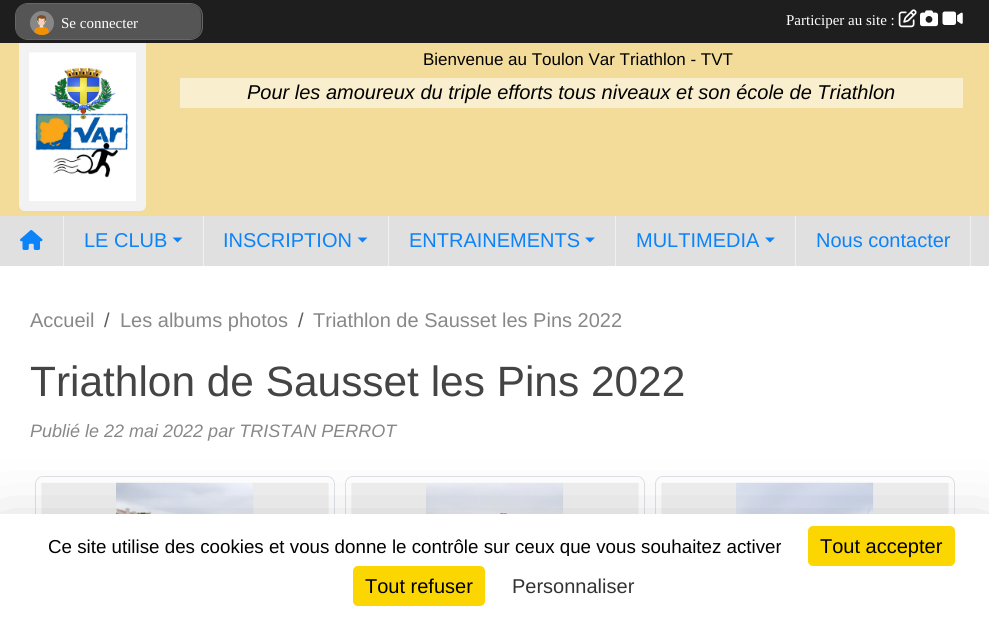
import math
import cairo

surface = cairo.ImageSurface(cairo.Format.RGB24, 989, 618)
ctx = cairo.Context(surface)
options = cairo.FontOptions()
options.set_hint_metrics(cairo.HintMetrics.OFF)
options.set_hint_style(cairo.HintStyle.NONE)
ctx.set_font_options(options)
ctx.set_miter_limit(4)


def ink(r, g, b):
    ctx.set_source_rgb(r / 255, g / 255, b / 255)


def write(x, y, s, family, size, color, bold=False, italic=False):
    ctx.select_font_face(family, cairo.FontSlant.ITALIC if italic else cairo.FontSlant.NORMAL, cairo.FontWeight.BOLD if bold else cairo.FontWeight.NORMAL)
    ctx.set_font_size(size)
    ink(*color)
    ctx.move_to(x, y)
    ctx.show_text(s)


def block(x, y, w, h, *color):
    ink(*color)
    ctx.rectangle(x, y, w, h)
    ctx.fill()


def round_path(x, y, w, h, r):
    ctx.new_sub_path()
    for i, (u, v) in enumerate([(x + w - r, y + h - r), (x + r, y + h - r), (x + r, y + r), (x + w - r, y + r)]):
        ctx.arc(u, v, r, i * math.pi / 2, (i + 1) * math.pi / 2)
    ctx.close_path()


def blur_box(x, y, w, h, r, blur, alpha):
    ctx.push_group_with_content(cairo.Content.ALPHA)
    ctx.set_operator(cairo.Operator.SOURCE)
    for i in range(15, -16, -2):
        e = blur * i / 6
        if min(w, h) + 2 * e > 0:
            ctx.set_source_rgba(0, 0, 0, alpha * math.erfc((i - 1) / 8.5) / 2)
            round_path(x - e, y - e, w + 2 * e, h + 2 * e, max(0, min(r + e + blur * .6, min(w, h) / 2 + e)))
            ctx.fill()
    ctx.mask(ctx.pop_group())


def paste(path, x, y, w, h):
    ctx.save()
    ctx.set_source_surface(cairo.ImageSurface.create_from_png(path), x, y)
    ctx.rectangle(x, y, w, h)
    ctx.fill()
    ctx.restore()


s1 = dict(family="Liberation Serif", size=15, color=(255, 255, 255))
s2 = dict(family="Liberation Sans", size=17, color=(0, 0, 0))
s3 = dict(family="Liberation Sans", size=20, color=(0, 0, 0), italic=True)
s4 = dict(family="Liberation Sans", size=20, color=(12, 131, 248))
s5 = dict(family="Liberation Sans", size=20, color=(136, 136, 136))
s6 = dict(family="Liberation Sans", size=20, color=(89, 92, 95))
s7 = dict(family="Liberation Sans", size=42.4, color=(68, 68, 68))
s8 = dict(family="Liberation Sans", size=18, color=(136, 136, 136), italic=True)
s9 = dict(family="Liberation Sans", size=18.75, color=(0, 0, 0))
s10 = dict(family="Liberation Sans", size=20, color=(0, 0, 0))
s11 = dict(family="Liberation Sans", size=20, color=(51, 51, 51))

ink(224, 224, 224)
ctx.paint()
block(0, 0, 989, 43, 30, 30, 30)
ink(51, 51, 51)
round_path(15.5, 3.5, 187, 36, 12.5)
ctx.fill_preserve()
ink(102, 102, 102)
ctx.set_line_width(1)
ctx.stroke()
ink(85, 85, 85)
round_path(16, 4, 185, 35, 11)
ctx.fill()
paste("pic1.png", 30, 11, 24, 24)
write(61, 28, "Se connecter", **s1)
write(786, 25, "Participer au site :", **s1)
paste("pic2.png", 898, 9, 19, 19)
paste("pic3.png", 920, 10, 18, 17)
paste("pic4.png", 942, 11, 21, 14)
block(0, 43, 989, 173, 243, 220, 154)
ink(242, 242, 242)
ctx.new_path()
ctx.move_to(19, 43)
ctx.line_to(146, 43)
ctx.line_to(146, 205)
ctx.curve_to(146, 208.5, 143.5, 211, 140, 211)
ctx.line_to(25, 211)
ctx.curve_to(21.5, 211, 19, 208.5, 19, 205)
ctx.close_path()
ctx.fill()
paste("pic5.png", 29, 52, 107, 149)
write(423, 65, "Bienvenue au Toulon Var Triathlon - TVT", **s2)
block(180, 78, 783, 30, 249, 238, 205)
write(247, 99, "Pour les amoureux du triple efforts tous niveaux et son école de Triathlon", **s3)
block(63, 216, 1, 50, 240, 240, 240)
paste("pic6.png", 20, 230, 23, 20)
block(203, 216, 1, 50, 240, 240, 240)
write(84, 247, "LE CLUB", **s4)
ctx.new_path()
ctx.move_to(172.5, 237.5)
ctx.line_to(182.5, 237.5)
ctx.line_to(177.5, 242.5)
ctx.close_path()
ctx.fill()
block(388, 216, 1, 50, 240, 240, 240)
write(223, 247, "INSCRIPTION", **s4)
ctx.new_path()
ctx.move_to(357.5, 237.5)
ctx.line_to(367.5, 237.5)
ctx.line_to(362.5, 242.5)
ctx.close_path()
ctx.fill()
block(615, 216, 1, 50, 240, 240, 240)
write(409, 247, "ENTRAINEMENTS", **s4)
ctx.new_path()
ctx.move_to(585, 237.5)
ctx.line_to(595, 237.5)
ctx.line_to(590, 242.5)
ctx.close_path()
ctx.fill()
block(795, 216, 1, 50, 240, 240, 240)
write(636, 247, "MULTIMEDIA", **s4)
ctx.new_path()
ctx.move_to(765, 237.5)
ctx.line_to(775, 237.5)
ctx.line_to(770, 242.5)
ctx.close_path()
ctx.fill()
block(970, 216, 1, 50, 240, 240, 240)
write(816, 247, "Nous contacter", **s4)
block(0, 266, 989, 248, 255, 255, 255)
write(30, 327, "Accueil", **s5)
write(104, 327, "/", **s6)
write(120, 327, "Les albums photos", **s5)
write(298, 327, "/", **s6)
write(313, 327, "Triathlon de Sausset les Pins 2022", **s5)
write(30, 396, "Triathlon de Sausset les Pins 2022", **s7)
write(30, 437, "Publié le 22 mai 2022 par TRISTAN PERROT", **s8)
round_path(35.5, 476.5, 299, 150, 7.5)
ink(222, 226, 230)
ctx.stroke()
paste("pic7.png", 41, 482, 288, 32)
round_path(345.5, 476.5, 299, 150, 7.5)
ctx.stroke()
paste("pic8.png", 351, 482, 288, 32)
round_path(655.5, 476.5, 299, 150, 7.5)
ctx.stroke()
paste("pic9.png", 661, 482, 288, 32)
ink(0, 0, 0)
blur_box(0, 539, 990, 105, 0, 37.5, 0.25)
block(0, 514, 989, 104, 255, 255, 255)
ctx.save()
ctx.rectangle(35, 535, 759, 21)
ctx.clip()
write(48, 553, "Ce site utilise des cookies et vous donne le contrôle sur ceux que vous souhaitez activer", **s9)
ctx.restore()
ink(251, 214, 0)
round_path(808, 526, 147, 40, 5)
ctx.fill()
write(820, 553, "Tout accepter", **s10)
ink(251, 214, 0)
round_path(353, 566, 132, 40, 5)
ctx.fill()
write(365, 593, "Tout refuser", **s10)
write(512, 593, "Personnaliser", **s11)
surface.write_to_png("screenshot.png")
